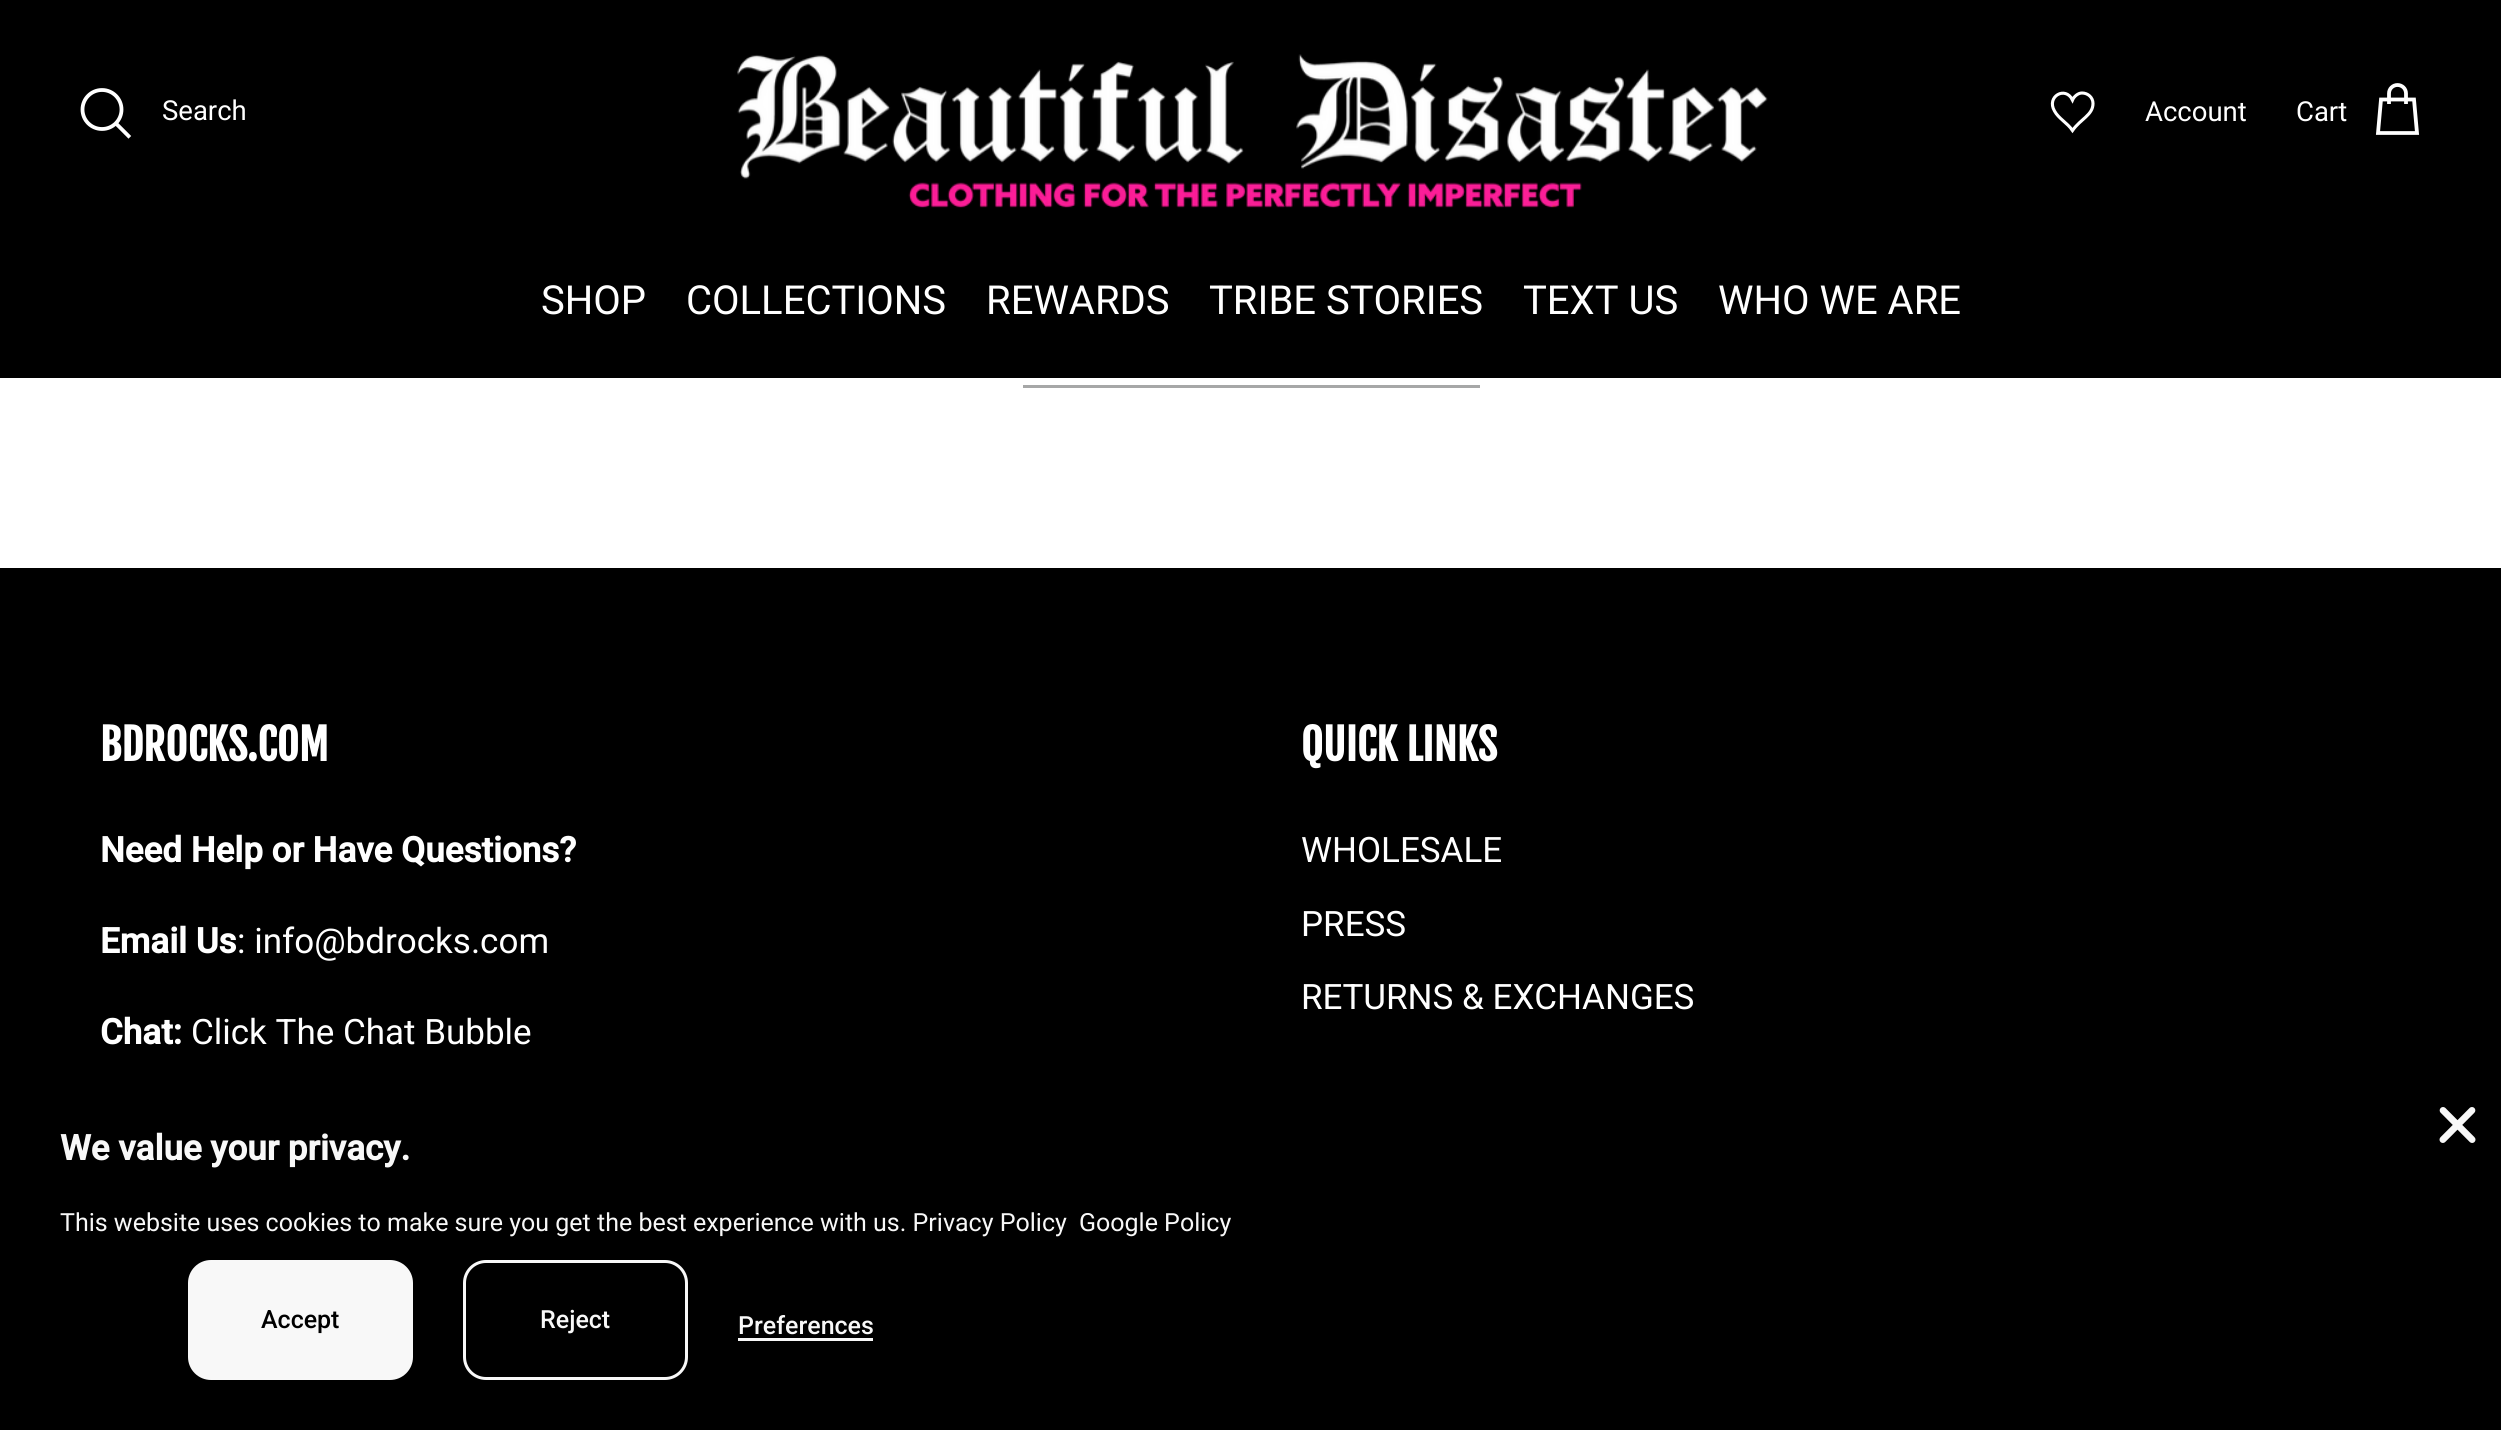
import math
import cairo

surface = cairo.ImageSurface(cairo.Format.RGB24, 2501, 1430)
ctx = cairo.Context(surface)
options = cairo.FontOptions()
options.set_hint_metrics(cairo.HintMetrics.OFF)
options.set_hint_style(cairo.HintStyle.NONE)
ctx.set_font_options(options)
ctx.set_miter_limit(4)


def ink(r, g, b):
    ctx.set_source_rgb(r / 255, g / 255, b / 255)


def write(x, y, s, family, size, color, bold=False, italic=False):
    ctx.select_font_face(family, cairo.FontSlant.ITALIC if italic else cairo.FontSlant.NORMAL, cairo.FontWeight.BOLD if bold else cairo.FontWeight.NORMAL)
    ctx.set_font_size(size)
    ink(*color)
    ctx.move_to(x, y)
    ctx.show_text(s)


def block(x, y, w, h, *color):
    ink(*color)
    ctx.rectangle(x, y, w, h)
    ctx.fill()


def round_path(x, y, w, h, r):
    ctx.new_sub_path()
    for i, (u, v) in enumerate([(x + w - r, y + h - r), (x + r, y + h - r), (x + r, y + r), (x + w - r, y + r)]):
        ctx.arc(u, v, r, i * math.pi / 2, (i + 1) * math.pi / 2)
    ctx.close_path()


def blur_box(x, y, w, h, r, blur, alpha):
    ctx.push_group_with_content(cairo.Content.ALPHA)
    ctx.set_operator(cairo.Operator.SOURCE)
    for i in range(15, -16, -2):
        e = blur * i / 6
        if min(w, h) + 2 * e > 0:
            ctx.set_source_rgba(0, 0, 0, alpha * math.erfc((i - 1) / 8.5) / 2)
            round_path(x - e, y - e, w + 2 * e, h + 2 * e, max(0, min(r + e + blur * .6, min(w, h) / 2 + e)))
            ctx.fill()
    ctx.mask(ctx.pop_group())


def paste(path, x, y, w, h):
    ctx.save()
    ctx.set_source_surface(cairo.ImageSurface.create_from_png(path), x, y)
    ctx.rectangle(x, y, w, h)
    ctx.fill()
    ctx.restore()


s1 = dict(family="Roboto", size=27.5, color=(255, 255, 255))
s2 = dict(family="Roboto", size=40, color=(255, 255, 255))
s3 = dict(family="Fjalla One", size=42.5, color=(255, 255, 255), bold=True)
s4 = dict(family="Roboto", size=35, color=(255, 255, 255), bold=True)
s5 = dict(family="Roboto", size=35, color=(255, 255, 255))
s6 = dict(family="Roboto", size=35, color=(248, 248, 248), bold=True)
s7 = dict(family="Roboto", size=25, color=(248, 248, 248))
s8 = dict(family="Roboto Medium", size=25, color=(0, 0, 0))
s9 = dict(family="Roboto Medium", size=25, color=(248, 248, 248))

ink(255, 255, 255)
ctx.paint()
block(0, 0, 2501, 378, 0, 0, 0)
ctx.arc(102, 109.5, 19.5, 0, 2 * math.pi)
ink(255, 255, 255)
ctx.set_line_width(3.8)
ctx.stroke()
write(162, 120, "Search", **s1)
ctx.new_path()
ctx.move_to(117.5, 125)
ctx.line_to(128.5, 136)
ctx.set_line_cap(cairo.LineCap.SQUARE)
ctx.stroke()
paste("pic1.png", 737, 54, 1031, 154)
ctx.new_path()
ctx.move_to(2082, 93)
ctx.curve_to(2078, 93, 2074, 96.5, 2072.5, 100)
ctx.curve_to(2065.5, 85.5, 2046, 96.5, 2054.5, 111)
ctx.curve_to(2058.5, 118.5, 2067.5, 123, 2072.5, 130.5)
ctx.curve_to(2080.5, 119, 2093, 115, 2093, 103.5)
ctx.curve_to(2093, 97.5, 2088, 93, 2082, 93)
ctx.close_path()
ctx.set_line_width(3.1)
ctx.set_line_cap(cairo.LineCap.BUTT)
ctx.stroke()
write(2145, 121, "Account", **s1)
write(2296, 121, "Cart", **s1)
ctx.new_path()
ctx.move_to(2406, 104)
ctx.line_to(2406, 93.5)
ctx.curve_to(2406, 88.5, 2402, 85, 2397.5, 85)
ctx.curve_to(2393, 85, 2389, 88.5, 2389, 93.5)
ctx.line_to(2389, 104)
ctx.move_to(2381, 99.5)
ctx.line_to(2414, 99.5)
ctx.line_to(2417, 133)
ctx.line_to(2378, 133)
ctx.close_path()
ctx.set_line_width(3.8)
ctx.stroke()
write(541, 314, "SHOP", **s2)
write(686, 314, "COLLECTIONS", **s2)
write(986, 314, "REWARDS", **s2)
write(1209, 314, "TRIBE STORIES", **s2)
write(1523, 314, "TEXT US", **s2)
write(1718, 314, "WHO WE ARE", **s2)
block(1023, 385, 457, 3, 166, 167, 167)
block(0, 568, 2501, 502, 0, 0, 0)
write(100, 761, "BDROCKS.COM", **s3)
write(100, 862, "Need Help or Have Questions?", **s4)
write(100, 953, "Email Us", **s4)
write(237, 953, ": info@bdrocks.com", **s5)
write(100, 1044, "Chat:", **s4)
write(191, 1044, "Click The Chat Bubble", **s5)
write(1301, 761, "QUICK LINKS", **s3)
write(1301, 862, "WHOLESALE", **s5)
write(1301, 936, "PRESS", **s5)
write(1301, 1009, "RETURNS & EXCHANGES", **s5)
ink(0, 0, 0)
blur_box(0, 1070, 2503, 360, 0, 2.5, 0.5)
block(0, 1070, 2501, 360, 0, 0, 0)
paste("pic2.png", 2439, 1107, 37, 36)
write(60, 1160, "We value your privacy.", **s6)
write(60, 1231, "This website uses cookies to make sure you get the best experience with us. Privacy Policy", **s7)
write(1079, 1231, "Google Policy", **s7)
round_path(188, 1260, 225, 120, 23)
ctx.fill()
write(261, 1328, "Accept", **s8)
round_path(464.5, 1261.5, 222, 117, 21.5)
ink(248, 248, 248)
ctx.set_line_width(3)
ctx.stroke()
write(540, 1328, "Reject", **s9)
write(738, 1334, "Preferences", **s9)
block(738, 1338, 135, 3, 248, 248, 248)
surface.write_to_png("screenshot.png")
